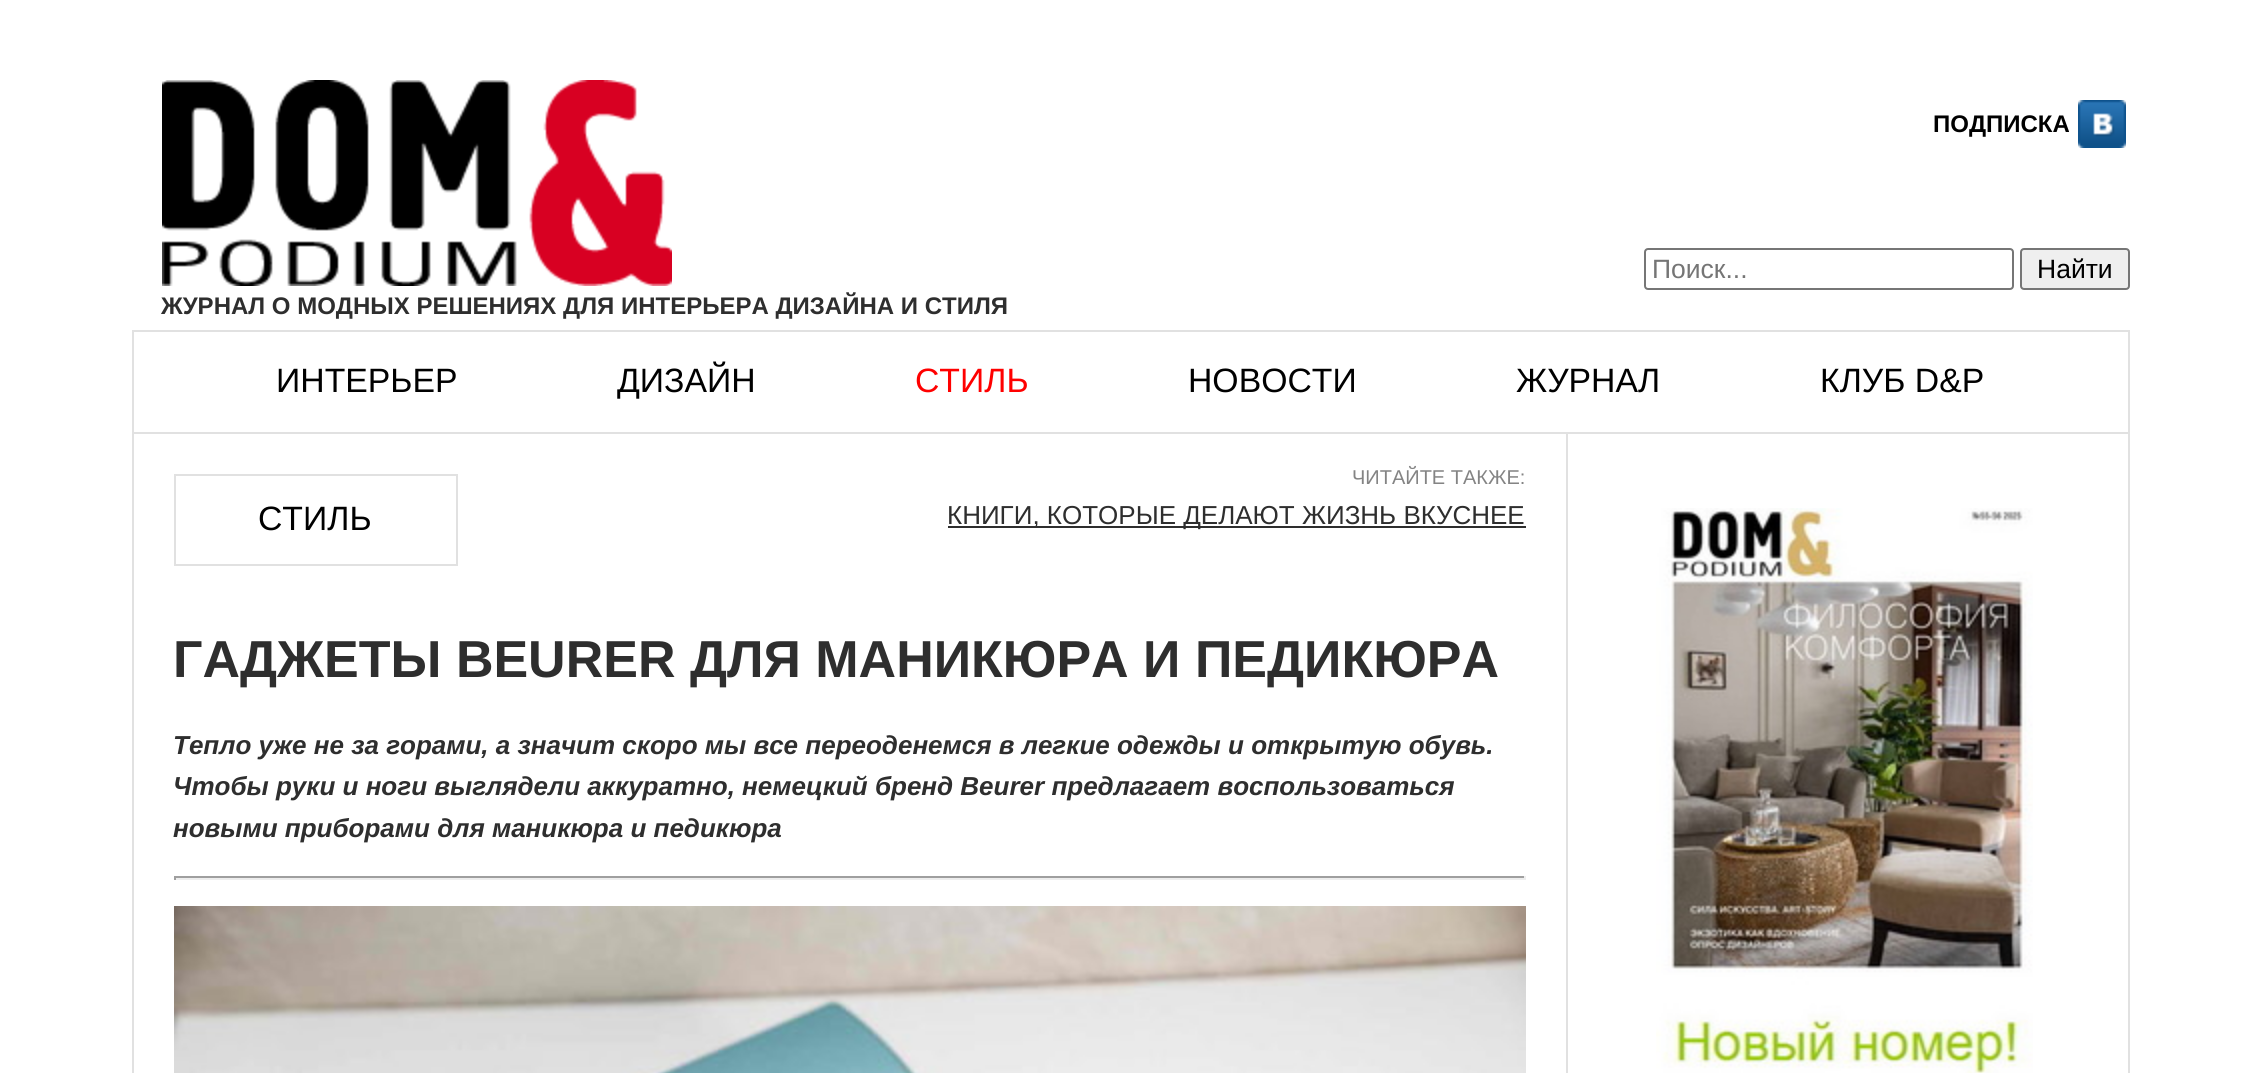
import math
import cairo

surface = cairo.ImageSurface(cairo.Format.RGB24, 2260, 1073)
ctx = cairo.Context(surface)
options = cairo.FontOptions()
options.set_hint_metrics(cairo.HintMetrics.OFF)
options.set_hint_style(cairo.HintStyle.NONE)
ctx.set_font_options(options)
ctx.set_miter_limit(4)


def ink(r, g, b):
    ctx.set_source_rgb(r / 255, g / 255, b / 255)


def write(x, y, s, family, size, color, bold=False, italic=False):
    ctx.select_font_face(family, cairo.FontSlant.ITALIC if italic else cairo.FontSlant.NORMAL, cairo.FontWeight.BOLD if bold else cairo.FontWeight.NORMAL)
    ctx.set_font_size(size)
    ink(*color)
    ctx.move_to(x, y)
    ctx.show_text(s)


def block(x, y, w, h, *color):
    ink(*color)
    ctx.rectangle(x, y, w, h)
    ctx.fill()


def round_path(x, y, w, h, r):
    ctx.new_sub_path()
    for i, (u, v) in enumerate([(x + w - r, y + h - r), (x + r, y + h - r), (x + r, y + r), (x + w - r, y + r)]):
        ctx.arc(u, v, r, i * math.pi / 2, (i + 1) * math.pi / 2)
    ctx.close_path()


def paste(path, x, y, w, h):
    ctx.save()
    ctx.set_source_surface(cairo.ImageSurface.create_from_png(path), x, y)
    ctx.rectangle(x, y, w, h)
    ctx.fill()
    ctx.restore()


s1 = dict(family="Liberation Sans", size=24, color=(0, 0, 0), bold=True)
s2 = dict(family="Liberation Sans", size=26.5, color=(117, 117, 117))
s3 = dict(family="Liberation Sans", size=26.5, color=(0, 0, 0))
s4 = dict(family="Liberation Sans", size=24, color=(46, 46, 46), bold=True)
s5 = dict(family="Liberation Sans", size=33.75, color=(0, 0, 0))
s6 = dict(family="Liberation Sans", size=33.75, color=(255, 0, 0))
s7 = dict(family="Liberation Sans", size=20, color=(132, 132, 132))
s8 = dict(family="Liberation Sans", size=26, color=(46, 46, 46))
s9 = dict(family="Liberation Sans", size=52, color=(46, 46, 46), bold=True)
s10 = dict(family="Liberation Sans", size=26, color=(46, 46, 46), bold=True, italic=True)

ink(255, 255, 255)
ctx.paint()
write(1933, 132, "ПОДПИСКА", **s1)
paste("pic1.png", 2078, 100, 48, 48)
round_path(1645, 249, 368, 40, 3)
ink(118, 118, 118)
ctx.stroke()
write(1652, 278, "Поиск...", **s2)
ink(239, 239, 239)
round_path(2021, 249, 108, 40, 3)
ctx.fill_preserve()
ink(118, 118, 118)
ctx.stroke()
write(2037, 278, "Найти", **s3)
paste("pic2.png", 162, 80, 510, 206)
write(161, 314, "ЖУРНАЛ О МОДНЫХ РЕШЕНИЯХ ДЛЯ ИНТЕРЬЕРА ДИЗАЙНА И СТИЛЯ", **s4)
block(132, 330, 1998, 2, 225, 225, 225)
block(2128, 330, 2, 102, 225, 225, 225)
block(132, 330, 2, 102, 225, 225, 225)
write(276, 392, "ИНТЕРЬЕР", **s5)
write(617, 392, "ДИЗАЙН", **s5)
write(915, 392, "СТИЛЬ", **s6)
write(1188, 392, "НОВОСТИ", **s5)
write(1516, 392, "ЖУРНАЛ", **s5)
write(1820, 392, "КЛУБ D&P", **s5)
ctx.rectangle(133, 433, 1996, 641)
ink(225, 225, 225)
ctx.stroke()
ctx.save()
ctx.rectangle(134, 434, 1994, 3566)
ctx.clip()
ctx.rectangle(133, 433, 1434, 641)
ctx.stroke()
ctx.restore()
ctx.rectangle(175, 475, 282, 90)
ctx.stroke()
write(258, 530, "СТИЛЬ", **s5)
write(1352, 484, "ЧИТАЙТЕ ТАКЖЕ:", **s7)
block(948, 526, 578, 2, 46, 46, 46)
write(947, 524, "КНИГИ, КОТОРЫЕ ДЕЛАЮТ ЖИЗНЬ ВКУСНЕЕ", **s8)
write(173, 677, "ГАДЖЕТЫ BEURER ДЛЯ МАНИКЮРА И ПЕДИКЮРА", **s9)
write(173, 754, "Тепло уже не за горами, а значит скоро мы все переоденемся в легкие одежды и открытую обувь.", **s10)
write(173, 795, "Чтобы руки и ноги выглядели аккуратно, немецкий бренд Beurer предлагает воспользоваться", **s10)
write(173, 837, "новыми приборами для маникюра и педикюра", **s10)
block(174, 876, 1352, 2, 159, 159, 159)
block(1524, 876, 2, 4, 238, 238, 238)
block(174, 878, 1352, 2, 238, 238, 238)
block(174, 876, 2, 4, 159, 159, 159)
paste("pic3.png", 174, 906, 1352, 167)
paste("pic4.png", 1656, 508, 377, 565)
surface.write_to_png("screenshot.png")
